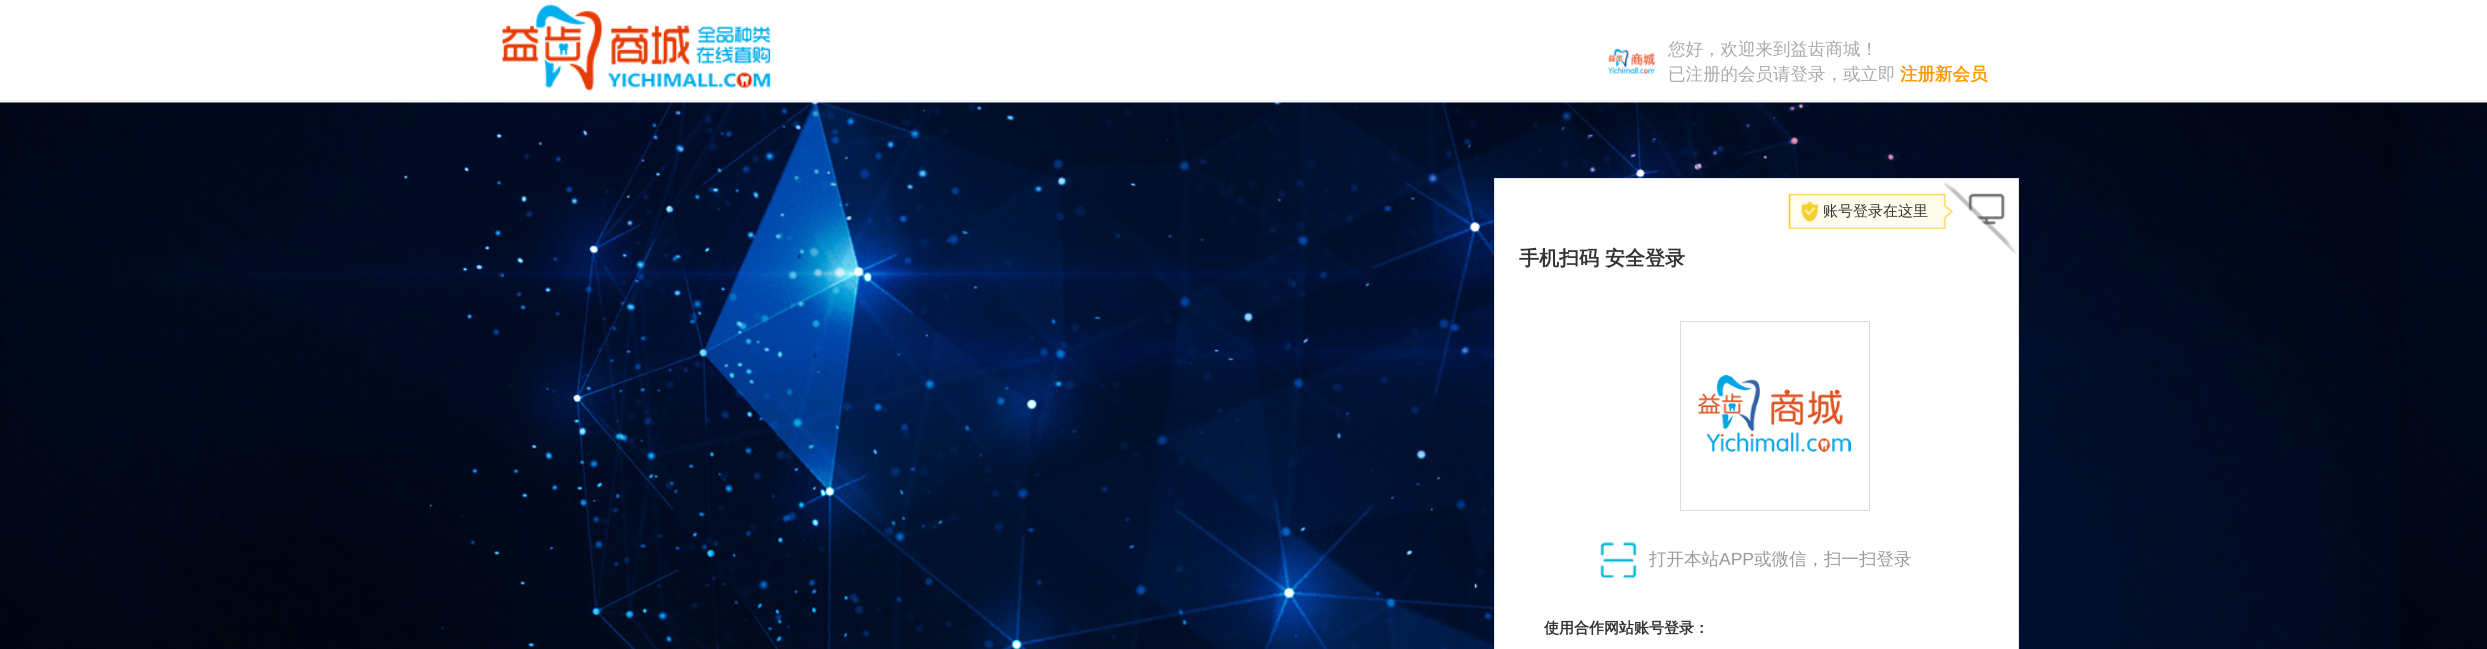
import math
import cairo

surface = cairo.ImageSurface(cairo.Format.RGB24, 2487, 649)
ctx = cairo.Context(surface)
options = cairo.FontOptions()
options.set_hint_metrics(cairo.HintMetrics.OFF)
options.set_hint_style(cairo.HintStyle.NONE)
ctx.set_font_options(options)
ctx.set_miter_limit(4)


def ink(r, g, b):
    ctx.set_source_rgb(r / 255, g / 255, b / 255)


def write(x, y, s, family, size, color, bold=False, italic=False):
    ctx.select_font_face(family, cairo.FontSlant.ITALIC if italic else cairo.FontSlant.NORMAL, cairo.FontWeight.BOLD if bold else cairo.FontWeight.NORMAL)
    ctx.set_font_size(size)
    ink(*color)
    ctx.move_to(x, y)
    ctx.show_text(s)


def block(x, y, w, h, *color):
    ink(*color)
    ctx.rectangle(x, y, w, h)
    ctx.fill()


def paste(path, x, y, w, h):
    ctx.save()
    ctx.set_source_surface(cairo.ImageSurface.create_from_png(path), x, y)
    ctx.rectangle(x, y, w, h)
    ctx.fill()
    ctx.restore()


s1 = dict(family="WenQuanYi Zen Hei Medium", size=17.5, color=(170, 170, 170))
s2 = dict(family="WenQuanYi Zen Hei", size=17.5, color=(255, 153, 0), bold=True)
s3 = dict(family="WenQuanYi Zen Hei Medium", size=15, color=(51, 51, 51))
s4 = dict(family="WenQuanYi Zen Hei", size=20, color=(51, 51, 51), bold=True)
s5 = dict(family="WenQuanYi Zen Hei Medium", size=17.5, color=(153, 153, 153))
s6 = dict(family="Liberation Sans", size=17.5, color=(153, 153, 153))
s7 = dict(family="WenQuanYi Zen Hei", size=15, color=(51, 51, 51), bold=True)

ink(255, 255, 255)
ctx.paint()
block(0, 100, 2487, 3, 245, 245, 245)
paste("pic1.png", 502, 4, 269, 87)
paste("pic2.png", 1608, 48, 48, 26)
write(1668, 55, "您好，欢迎来到益齿商城！", **s1)
write(1668, 80, "已注册的会员请登录，或立即", **s1)
write(1900, 80, "注册新会员", **s2)
paste("pic3.png", 0, 102, 2487, 547)
ink(255, 255, 255)
ctx.rectangle(1494.5, 178.5, 524, 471)
ctx.fill_preserve()
ink(230, 230, 230)
ctx.set_line_width(1)
ctx.stroke()
paste("pic5.png", 1943, 181, 73, 73)
paste("pic4.png", 1788, 193, 165, 36)
write(1823, 216, "账号登录在这里", **s3)
write(1519, 265, "手机扫码 安全登录", **s4)
ctx.rectangle(1680.5, 321.5, 189, 189)
ink(221, 221, 221)
ctx.stroke()
paste("pic6.png", 1698, 375, 153, 77)
paste("pic7.png", 1600, 542, 37, 36)
write(1649, 565, "打开本站", **s5)
write(1719, 565, "APP", **s6)
write(1754, 565, "或微信，扫一扫登录", **s5)
write(1544, 633, "使用合作网站账号登录：", **s7)
surface.write_to_png("screenshot.png")
